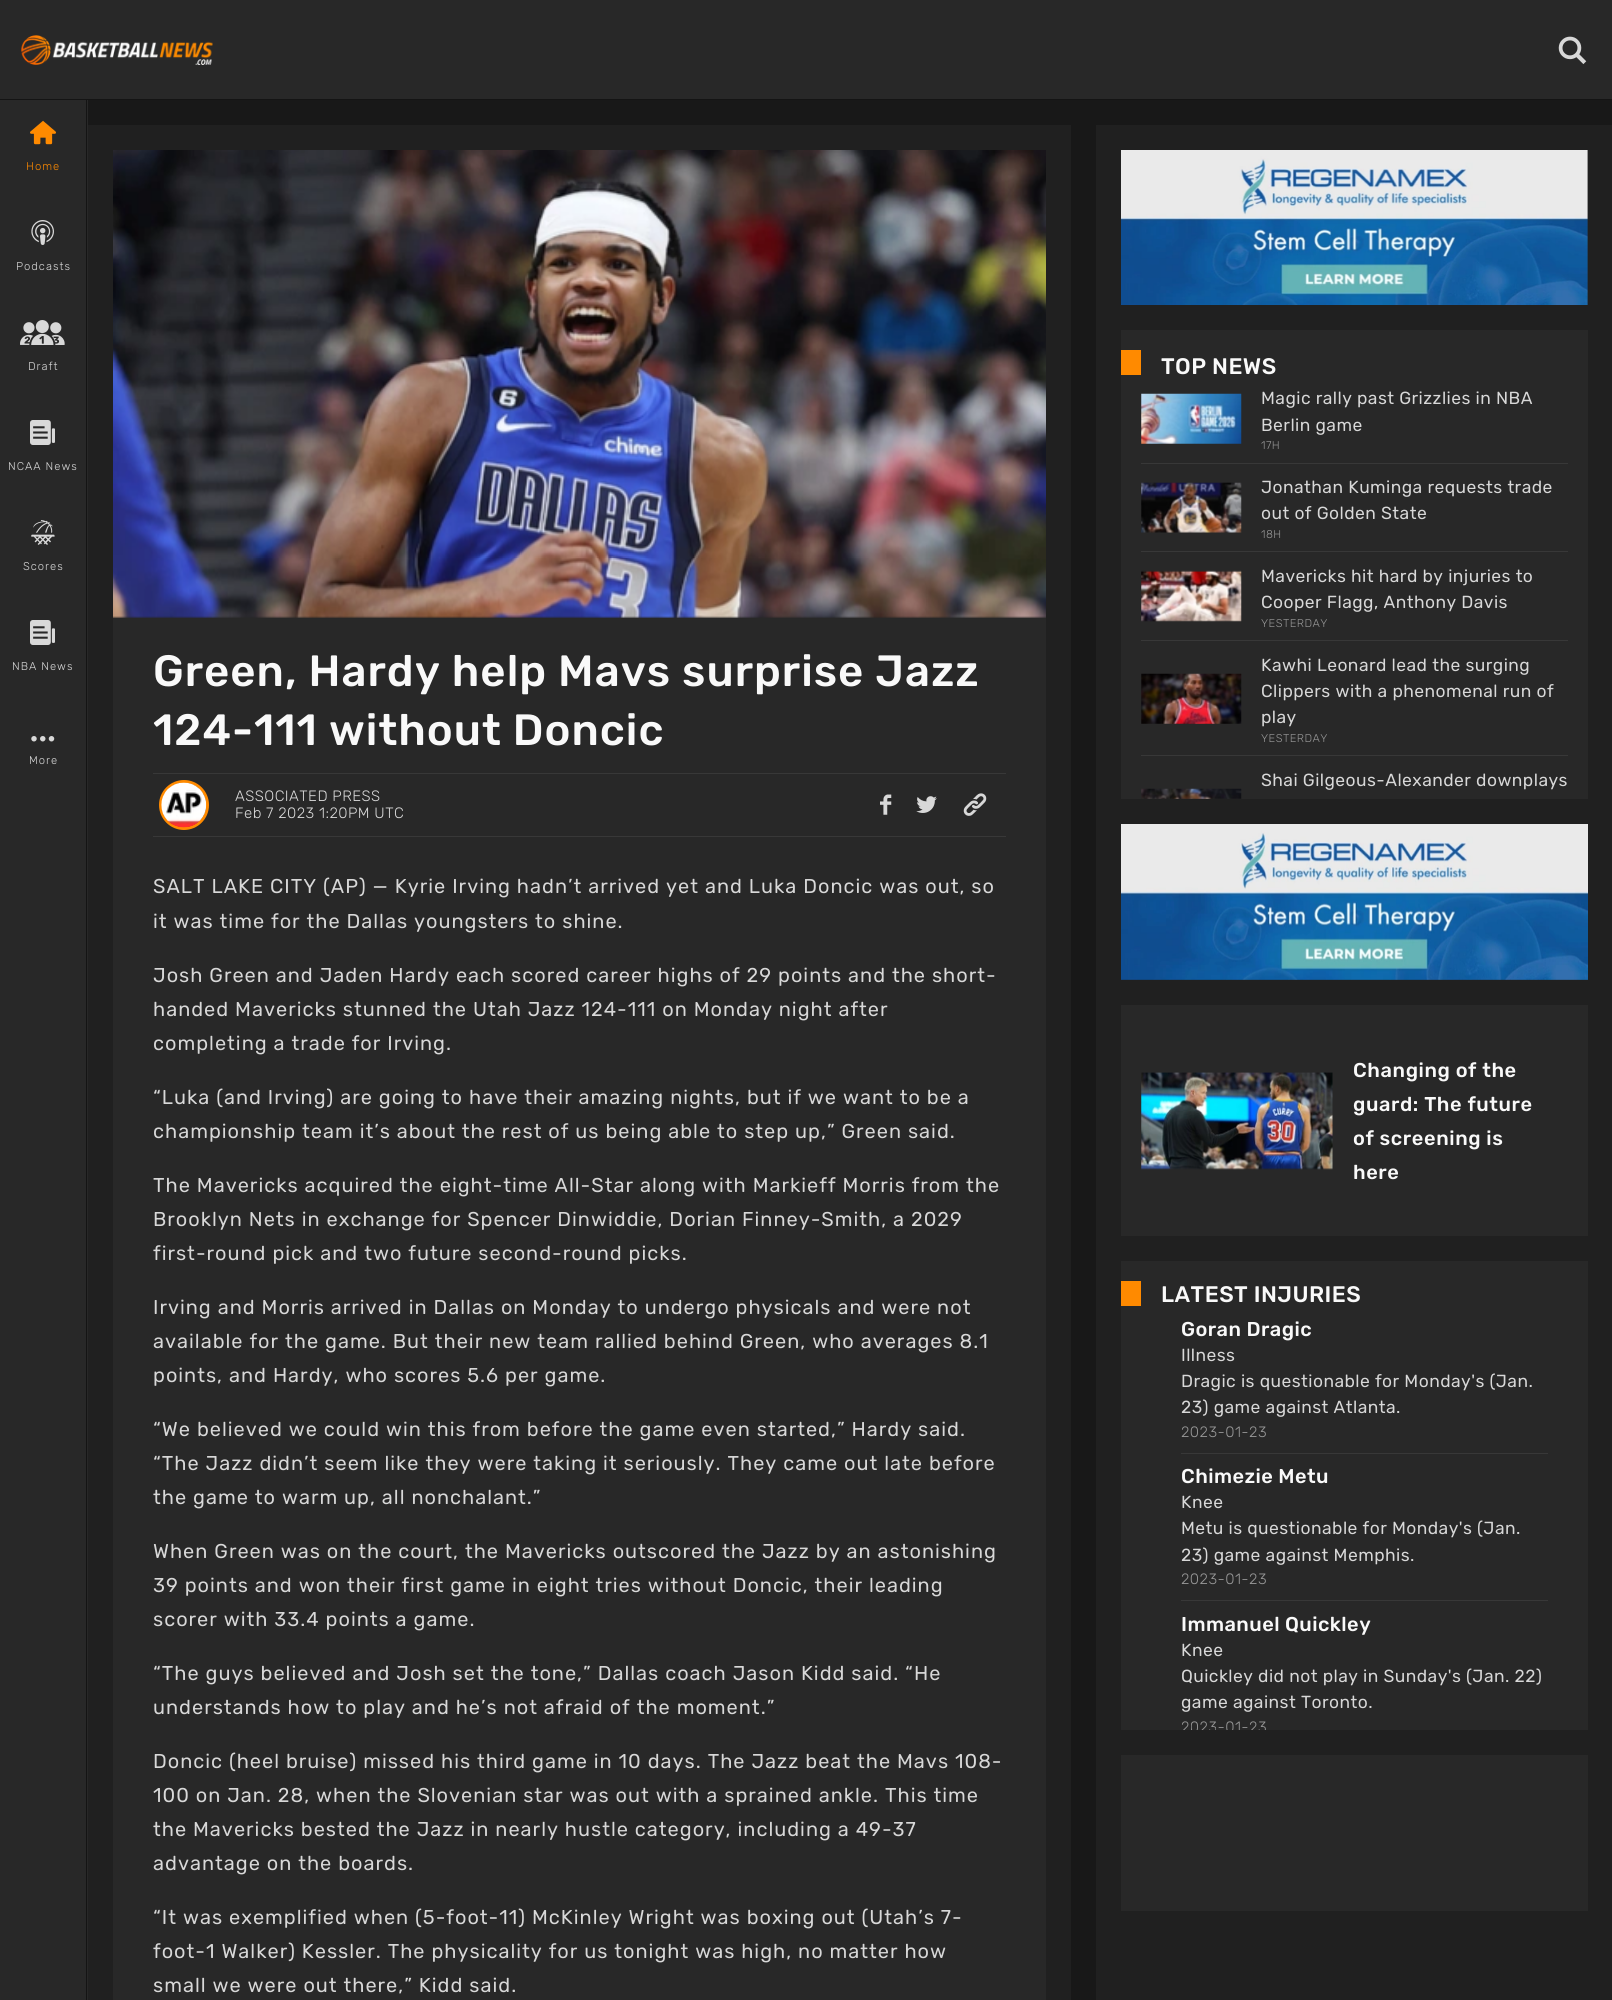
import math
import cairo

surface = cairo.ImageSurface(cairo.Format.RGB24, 1612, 2000)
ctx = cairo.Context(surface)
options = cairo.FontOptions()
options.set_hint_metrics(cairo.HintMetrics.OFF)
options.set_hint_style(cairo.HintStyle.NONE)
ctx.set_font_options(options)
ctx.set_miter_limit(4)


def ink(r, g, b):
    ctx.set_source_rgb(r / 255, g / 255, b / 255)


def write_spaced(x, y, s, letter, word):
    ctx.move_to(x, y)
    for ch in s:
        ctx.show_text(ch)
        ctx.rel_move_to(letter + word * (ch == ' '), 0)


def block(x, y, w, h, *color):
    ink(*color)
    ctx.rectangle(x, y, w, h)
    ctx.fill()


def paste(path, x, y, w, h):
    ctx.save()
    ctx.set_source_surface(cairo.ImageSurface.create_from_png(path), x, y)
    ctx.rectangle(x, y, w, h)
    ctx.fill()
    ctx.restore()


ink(24, 24, 24)
ctx.paint()
block(0, 0, 1612, 99, 40, 40, 40)
block(0, 99, 1612, 1, 20, 20, 20)
paste("pic1.png", 21, 35, 192, 30)
paste("pic2.png", 1558, 36, 29, 29)
block(0, 100, 88, 1900, 40, 40, 40)
block(86, 100, 1, 1900, 20, 20, 20)
paste("pic3.png", 30, 120, 26, 25)
ctx.select_font_face("Rubik Light")
ctx.set_font_size(11.25)
ink(255, 138, 0)
write_spaced(26, 170, "Home", 1, 0)
paste("pic4.png", 31, 220, 23, 25)
ink(216, 216, 216)
write_spaced(16, 270, "Podcasts", 1, 0)
paste("pic5.png", 20, 320, 45, 25)
write_spaced(28, 370, "Draft", 1, 0)
paste("pic6.png", 30, 420, 25, 25)
write_spaced(8, 470, "NCAA News", 1, 0)
paste("pic7.png", 31, 520, 24, 25)
write_spaced(23, 570, "Scores", 1, 0)
paste("pic6.png", 30, 620, 25, 25)
write_spaced(12, 670, "NBA News", 1, 0)
paste("pic8.png", 31, 736, 24, 6)
write_spaced(29, 764, "More", 1, 0)
block(88, 125, 983, 1875, 32, 32, 32)
block(113, 616, 933, 1384, 40, 40, 40)
paste("pic9.png", 113, 150, 933, 468)
ctx.select_font_face("Rubik Medium")
ctx.set_font_size(43.75)
ink(249, 249, 249)
write_spaced(153, 686, "Green, Hardy help Mavs surprise Jazz", 1, 0)
write_spaced(153, 745, "124-111 without Doncic", 1, 0)
block(153, 773, 853, 1, 56, 56, 56)
block(153, 836, 853, 1, 56, 56, 56)
ctx.new_path()
ctx.arc(184, 805, 23.5, 0, 2 * math.pi)
ink(255, 138, 0)
ctx.set_line_width(3)
ctx.stroke()
paste("pic10.png", 161, 782, 46, 46)
ctx.select_font_face("Rubik Light")
ctx.set_font_size(15)
ink(216, 216, 216)
write_spaced(235, 801, "ASSOCIATED PRESS", 0.45, 0)
write_spaced(235, 818, "Feb 7 2023 1:20PM UTC", 0.45, 0)
paste("pic11.png", 880, 794, 12, 21)
paste("pic12.png", 916, 796, 21, 17)
paste("pic13.png", 963, 793, 24, 23)
ctx.select_font_face("Rubik")
ctx.set_font_size(20)
write_spaced(153, 893, "SALT LAKE CITY (AP) — Kyrie Irving hadn’t arrived yet and Luka Doncic was out, so", 1, 0)
write_spaced(153, 928, "it was time for the Dallas youngsters to shine.", 1, 0)
write_spaced(153, 982, "Josh Green and Jaden Hardy each scored career highs of 29 points and the short-", 1, 0)
write_spaced(153, 1016, "handed Mavericks stunned the Utah Jazz 124-111 on Monday night after", 1, 0)
write_spaced(153, 1050, "completing a trade for Irving.", 1, 0)
write_spaced(153, 1104, "“Luka (and Irving) are going to have their amazing nights, but if we want to be a", 1, 0)
write_spaced(153, 1138, "championship team it’s about the rest of us being able to step up,” Green said.", 1, 0)
write_spaced(153, 1192, "The Mavericks acquired the eight-time All-Star along with Markieff Morris from the", 1, 0)
write_spaced(153, 1226, "Brooklyn Nets in exchange for Spencer Dinwiddie, Dorian Finney-Smith, a 2029", 1, 0)
write_spaced(153, 1260, "first-round pick and two future second-round picks.", 1, 0)
write_spaced(153, 1314, "Irving and Morris arrived in Dallas on Monday to undergo physicals and were not", 1, 0)
write_spaced(153, 1348, "available for the game. But their new team rallied behind Green, who averages 8.1", 1, 0)
write_spaced(153, 1382, "points, and Hardy, who scores 5.6 per game.", 1, 0)
write_spaced(153, 1436, "“We believed we could win this from before the game even started,” Hardy said.", 1, 0)
write_spaced(153, 1470, "“The Jazz didn’t seem like they were taking it seriously. They came out late before", 1, 0)
write_spaced(153, 1504, "the game to warm up, all nonchalant.”", 1, 0)
write_spaced(153, 1558, "When Green was on the court, the Mavericks outscored the Jazz by an astonishing", 1, 0)
write_spaced(153, 1592, "39 points and won their first game in eight tries without Doncic, their leading", 1, 0)
write_spaced(153, 1626, "scorer with 33.4 points a game.", 1, 0)
write_spaced(153, 1680, "“The guys believed and Josh set the tone,” Dallas coach Jason Kidd said. “He", 1, 0)
write_spaced(153, 1714, "understands how to play and he’s not afraid of the moment.”", 1, 0)
write_spaced(153, 1768, "Doncic (heel bruise) missed his third game in 10 days. The Jazz beat the Mavs 108-", 1, 0)
write_spaced(153, 1802, "100 on Jan. 28, when the Slovenian star was out with a sprained ankle. This time", 1, 0)
write_spaced(153, 1836, "the Mavericks bested the Jazz in nearly hustle category, including a 49-37", 1, 0)
write_spaced(153, 1870, "advantage on the boards.", 1, 0)
write_spaced(153, 1924, "“It was exemplified when (5-foot-11) McKinley Wright was boxing out (Utah’s 7-", 1, 0)
write_spaced(153, 1958, "foot-1 Walker) Kessler. The physicality for us tonight was high, no matter how", 1, 0)
write_spaced(153, 1992, "small we were out there,” Kidd said.", 1, 0)
block(1096, 125, 516, 1875, 32, 32, 32)
block(1587, 150, 1, 155, 40, 40, 40)
paste("pic14.png", 1121, 150, 467, 155)
block(1121, 330, 467, 469, 40, 40, 40)
block(1121, 350, 20, 25, 255, 138, 0)
ctx.select_font_face("Rubik Medium")
ctx.set_font_size(22.5)
ink(249, 249, 249)
write_spaced(1161, 374, "TOP NEWS", 0.45, 0)
block(1141, 463, 427, 1, 56, 56, 56)
paste("pic15.png", 1141, 393, 101, 51)
ctx.select_font_face("Rubik")
ctx.set_font_size(17.5)
ink(216, 216, 216)
write_spaced(1261, 404, "Magic rally past Grizzlies in NBA", 0.45, 0)
write_spaced(1261, 431, "Berlin game", 0.45, 0)
ctx.select_font_face("Rubik Light")
ctx.set_font_size(11.25)
ink(151, 151, 151)
write_spaced(1261, 449, "17H", 0.45, 0)
block(1141, 551, 427, 1, 56, 56, 56)
paste("pic16.png", 1141, 482, 101, 51)
ctx.select_font_face("Rubik")
ctx.set_font_size(17.5)
ink(216, 216, 216)
write_spaced(1261, 493, "Jonathan Kuminga requests trade", 0.45, 0)
write_spaced(1261, 519, "out of Golden State", 0.45, 0)
ctx.select_font_face("Rubik Light")
ctx.set_font_size(11.25)
ink(151, 151, 151)
write_spaced(1261, 538, "18H", 0.45, 0)
block(1141, 640, 427, 1, 56, 56, 56)
paste("pic17.png", 1141, 570, 101, 52)
ctx.select_font_face("Rubik")
ctx.set_font_size(17.5)
ink(216, 216, 216)
write_spaced(1261, 582, "Mavericks hit hard by injuries to", 0.45, 0)
write_spaced(1261, 608, "Cooper Flagg, Anthony Davis", 0.45, 0)
ctx.select_font_face("Rubik Light")
ctx.set_font_size(11.25)
ink(151, 151, 151)
write_spaced(1261, 627, "YESTERDAY", 0.45, 0)
block(1141, 755, 427, 1, 56, 56, 56)
paste("pic18.png", 1141, 673, 101, 51)
ctx.select_font_face("Rubik")
ctx.set_font_size(17.5)
ink(216, 216, 216)
write_spaced(1261, 671, "Kawhi Leonard lead the surging", 0.45, 0)
write_spaced(1261, 697, "Clippers with a phenomenal run of", 0.45, 0)
write_spaced(1261, 723, "play", 0.45, 0)
ctx.select_font_face("Rubik Light")
ctx.set_font_size(11.25)
ink(151, 151, 151)
write_spaced(1261, 742, "YESTERDAY", 0.45, 0)
ctx.select_font_face("Rubik")
ctx.set_font_size(17.5)
ink(216, 216, 216)
write_spaced(1261, 786, "Shai Gilgeous-Alexander downplays", 0.45, 0)
paste("pic19.png", 1141, 788, 101, 11)
paste("pic20.png", 1121, 824, 467, 156)
block(1121, 1005, 467, 231, 40, 40, 40)
paste("pic21.png", 1141, 1072, 192, 98)
ctx.select_font_face("Rubik Medium")
ctx.set_font_size(20)
ink(249, 249, 249)
write_spaced(1353, 1077, "Changing of the", 0.6, 0)
write_spaced(1353, 1111, "guard: The future", 0.6, 0)
write_spaced(1353, 1145, "of screening is", 0.6, 0)
write_spaced(1353, 1179, "here", 0.6, 0)
block(1121, 1261, 467, 469, 40, 40, 40)
block(1121, 1281, 20, 25, 255, 138, 0)
ctx.set_font_size(22.5)
ink(249, 249, 249)
write_spaced(1161, 1302, "LATEST INJURIES", 0.45, 0)
block(1181, 1453, 367, 1, 56, 56, 56)
ctx.set_font_size(20)
ink(249, 249, 249)
write_spaced(1181, 1336, "Goran Dragic", 0.45, 0)
ctx.select_font_face("Rubik")
ctx.set_font_size(17.5)
ink(216, 216, 216)
write_spaced(1181, 1361, "Illness", 0.45, 0)
write_spaced(1181, 1387, "Dragic is questionable for Monday's (Jan.", 0.45, 0)
write_spaced(1181, 1413, "23) game against Atlanta.", 0.45, 0)
ctx.select_font_face("Rubik Light")
ctx.set_font_size(15)
ink(151, 151, 151)
write_spaced(1181, 1437, "2023-01-23", 0.45, 0)
block(1181, 1600, 367, 1, 56, 56, 56)
ctx.select_font_face("Rubik Medium")
ctx.set_font_size(20)
ink(249, 249, 249)
write_spaced(1181, 1483, "Chimezie Metu", 0.45, 0)
ctx.select_font_face("Rubik")
ctx.set_font_size(17.5)
ink(216, 216, 216)
write_spaced(1181, 1508, "Knee", 0.45, 0)
write_spaced(1181, 1534, "Metu is questionable for Monday's (Jan.", 0.45, 0)
write_spaced(1181, 1561, "23) game against Memphis.", 0.45, 0)
ctx.select_font_face("Rubik Light")
ctx.set_font_size(15)
ink(151, 151, 151)
write_spaced(1181, 1584, "2023-01-23", 0.45, 0)
ctx.select_font_face("Rubik Medium")
ctx.set_font_size(20)
ink(249, 249, 249)
write_spaced(1181, 1631, "Immanuel Quickley", 0.45, 0)
ctx.select_font_face("Rubik")
ctx.set_font_size(17.5)
ink(216, 216, 216)
write_spaced(1181, 1656, "Knee", 0.45, 0)
write_spaced(1181, 1682, "Quickley did not play in Sunday's (Jan. 22)", 0.45, 0)
write_spaced(1181, 1708, "game against Toronto.", 0.45, 0)
ctx.save()
ctx.rectangle(1181, 1715, 367, 15)
ctx.clip()
ctx.select_font_face("Rubik Light")
ctx.set_font_size(15)
ink(151, 151, 151)
write_spaced(1181, 1732, "2023-01-23", 0.45, 0)
ctx.restore()
block(1121, 1755, 467, 156, 40, 40, 40)
surface.write_to_png("screenshot.png")
